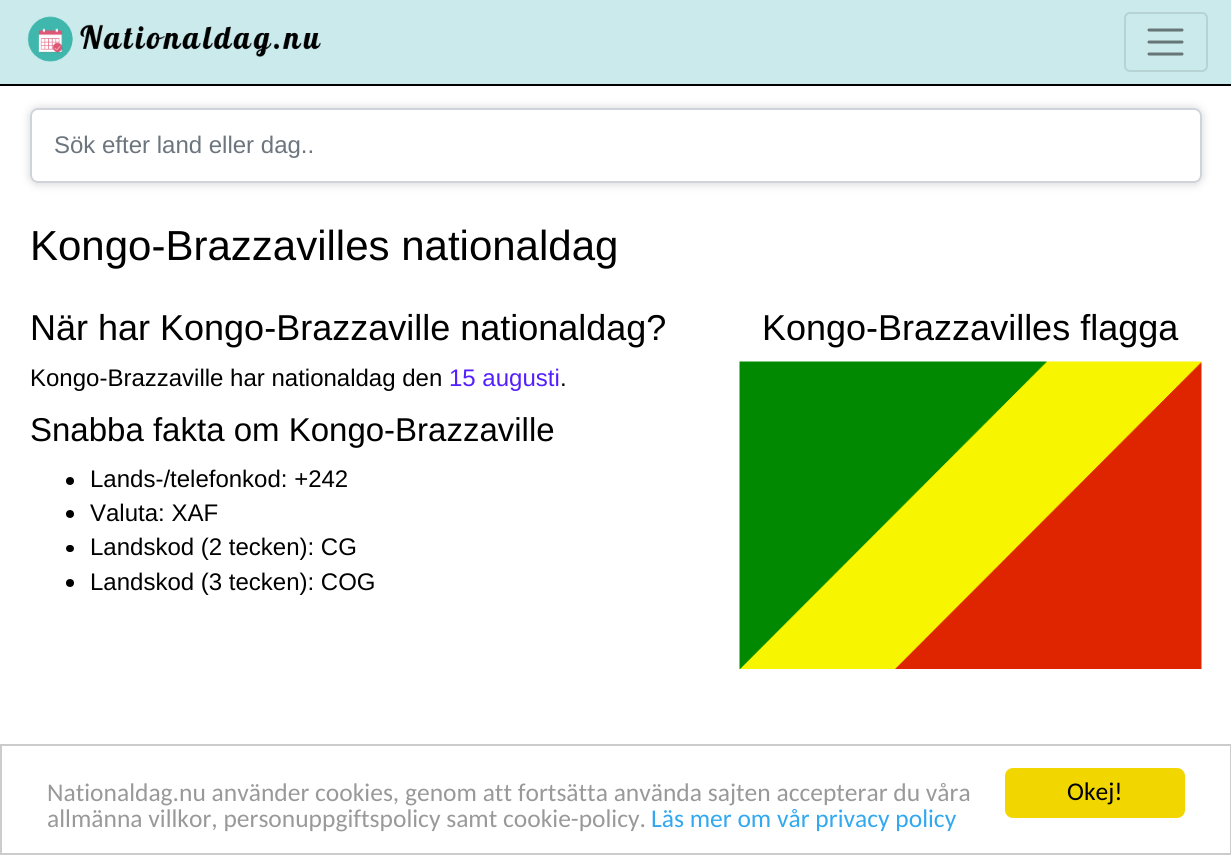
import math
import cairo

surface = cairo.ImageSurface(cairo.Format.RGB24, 1231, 855)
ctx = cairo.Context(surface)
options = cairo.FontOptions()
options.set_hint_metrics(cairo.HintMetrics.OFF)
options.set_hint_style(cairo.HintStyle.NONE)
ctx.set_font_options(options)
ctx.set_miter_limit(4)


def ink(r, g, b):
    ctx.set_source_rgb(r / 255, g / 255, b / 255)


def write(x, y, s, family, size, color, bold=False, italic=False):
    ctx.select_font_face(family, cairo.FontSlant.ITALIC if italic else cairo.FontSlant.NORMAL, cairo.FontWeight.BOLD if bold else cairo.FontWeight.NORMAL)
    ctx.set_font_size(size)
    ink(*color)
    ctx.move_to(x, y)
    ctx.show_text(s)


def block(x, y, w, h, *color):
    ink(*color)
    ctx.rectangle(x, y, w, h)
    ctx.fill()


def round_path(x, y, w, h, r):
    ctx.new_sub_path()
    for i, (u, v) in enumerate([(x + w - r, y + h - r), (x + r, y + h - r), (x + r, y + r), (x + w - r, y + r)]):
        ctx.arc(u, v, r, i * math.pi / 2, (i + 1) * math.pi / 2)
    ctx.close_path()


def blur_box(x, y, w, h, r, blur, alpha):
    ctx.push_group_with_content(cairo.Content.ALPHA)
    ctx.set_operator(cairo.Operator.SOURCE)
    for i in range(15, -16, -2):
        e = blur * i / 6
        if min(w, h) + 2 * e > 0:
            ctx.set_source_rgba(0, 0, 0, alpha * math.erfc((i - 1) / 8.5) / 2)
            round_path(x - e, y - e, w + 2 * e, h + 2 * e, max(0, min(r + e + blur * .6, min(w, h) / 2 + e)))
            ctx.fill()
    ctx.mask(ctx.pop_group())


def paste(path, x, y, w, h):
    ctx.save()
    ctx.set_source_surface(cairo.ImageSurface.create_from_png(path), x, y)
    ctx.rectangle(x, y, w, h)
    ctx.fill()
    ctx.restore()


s1 = dict(family="Liberation Sans", size=24, color=(108, 117, 125))
s2 = dict(family="Liberation Sans", size=42, color=(0, 0, 0))
s3 = dict(family="Liberation Sans", size=36, color=(0, 0, 0))
s4 = dict(family="Liberation Sans", size=24, color=(0, 0, 0))
s5 = dict(family="Liberation Sans", size=24, color=(83, 31, 255))
s6 = dict(family="Liberation Sans", size=33, color=(0, 0, 0))
s7 = dict(family="Carlito", size=25.5, color=(153, 153, 153))
s8 = dict(family="Carlito", size=25.5, color=(49, 168, 240))
s9 = dict(family="Carlito", size=25.5, color=(0, 0, 0))

ink(255, 255, 255)
ctx.paint()
block(0, 0, 1231, 84, 203, 234, 236)
block(0, 84, 1231, 2, 0, 0, 0)
paste("pic1.png", 27, 16, 294, 46)
round_path(1125, 13, 82, 58, 5)
ink(183, 211, 212)
ctx.stroke()
ctx.new_path()
ctx.move_to(1149, 30)
ctx.line_to(1182, 30)
ctx.move_to(1149, 42)
ctx.line_to(1182, 42)
ctx.move_to(1149, 54)
ctx.line_to(1182, 54)
ink(102, 117, 118)
ctx.set_line_width(3)
ctx.set_line_cap(cairo.LineCap.ROUND)
ctx.stroke()
ctx.save()
ctx.set_fill_rule(cairo.FillRule.EVEN_ODD)
ctx.new_path()
ctx.move_to(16, 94)
ctx.line_to(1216, 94)
ctx.line_to(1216, 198)
ctx.line_to(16, 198)
ctx.close_path()
ctx.move_to(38, 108)
ctx.line_to(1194, 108)
ctx.curve_to(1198.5, 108, 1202, 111.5, 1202, 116)
ctx.line_to(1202, 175)
ctx.curve_to(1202, 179.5, 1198.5, 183, 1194, 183)
ctx.line_to(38, 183)
ctx.curve_to(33.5, 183, 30, 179.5, 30, 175)
ctx.line_to(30, 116)
ctx.curve_to(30, 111.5, 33.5, 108, 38, 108)
ctx.close_path()
ctx.clip()
ink(221, 221, 221)
blur_box(29, 107, 1174, 78, 9, 4, 1)
ctx.restore()
round_path(31, 109, 1170, 73, 7)
ink(206, 212, 218)
ctx.set_line_width(2)
ctx.set_line_cap(cairo.LineCap.BUTT)
ctx.stroke()
write(54, 153, "Sök efter land eller dag..", **s1)
write(30, 260, "Kongo-Brazzavilles nationaldag", **s2)
write(30, 340, "När har Kongo-Brazzaville nationaldag?", **s3)
write(30, 386, "Kongo-Brazzaville har nationaldag den", **s4)
write(449, 386, "15 augusti", **s5)
write(560, 386, ".", **s4)
write(30, 441, "Snabba fakta om Kongo-Brazzaville", **s6)
ctx.new_path()
ctx.arc(70, 481, 4, 0, 2 * math.pi)
ctx.fill()
write(90, 487, "Lands-/telefonkod: +242", **s4)
ctx.new_path()
ctx.arc(70, 514, 4, 0, 2 * math.pi)
ctx.fill()
write(90, 521, "Valuta: XAF", **s4)
round_path(66, 545, 8, 7, 3.5)
ctx.fill()
write(90, 555, "Landskod (2 tecken): CG", **s4)
ctx.new_path()
ctx.arc(70, 583, 4, 0, 2 * math.pi)
ctx.fill()
write(90, 590, "Landskod (3 tecken): COG", **s4)
write(762, 340, "Kongo-Brazzavilles flagga", **s3)
paste("pic2.png", 739, 361, 463, 308)
ctx.rectangle(1, 745, 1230, 109)
ink(204, 204, 204)
ctx.stroke()
write(47, 801, "Nationaldag.nu använder cookies, genom att fortsätta använda sajten accepterar du våra", **s7)
write(47, 827, "allmänna villkor, personuppgiftspolicy samt cookie-policy.", **s7)
write(651, 827, "Läs mer om vår privacy policy", **s8)
ink(241, 214, 0)
round_path(1005, 768, 180, 50, 8)
ctx.fill()
write(1067, 800, "Okej!", **s9)
surface.write_to_png("screenshot.png")
